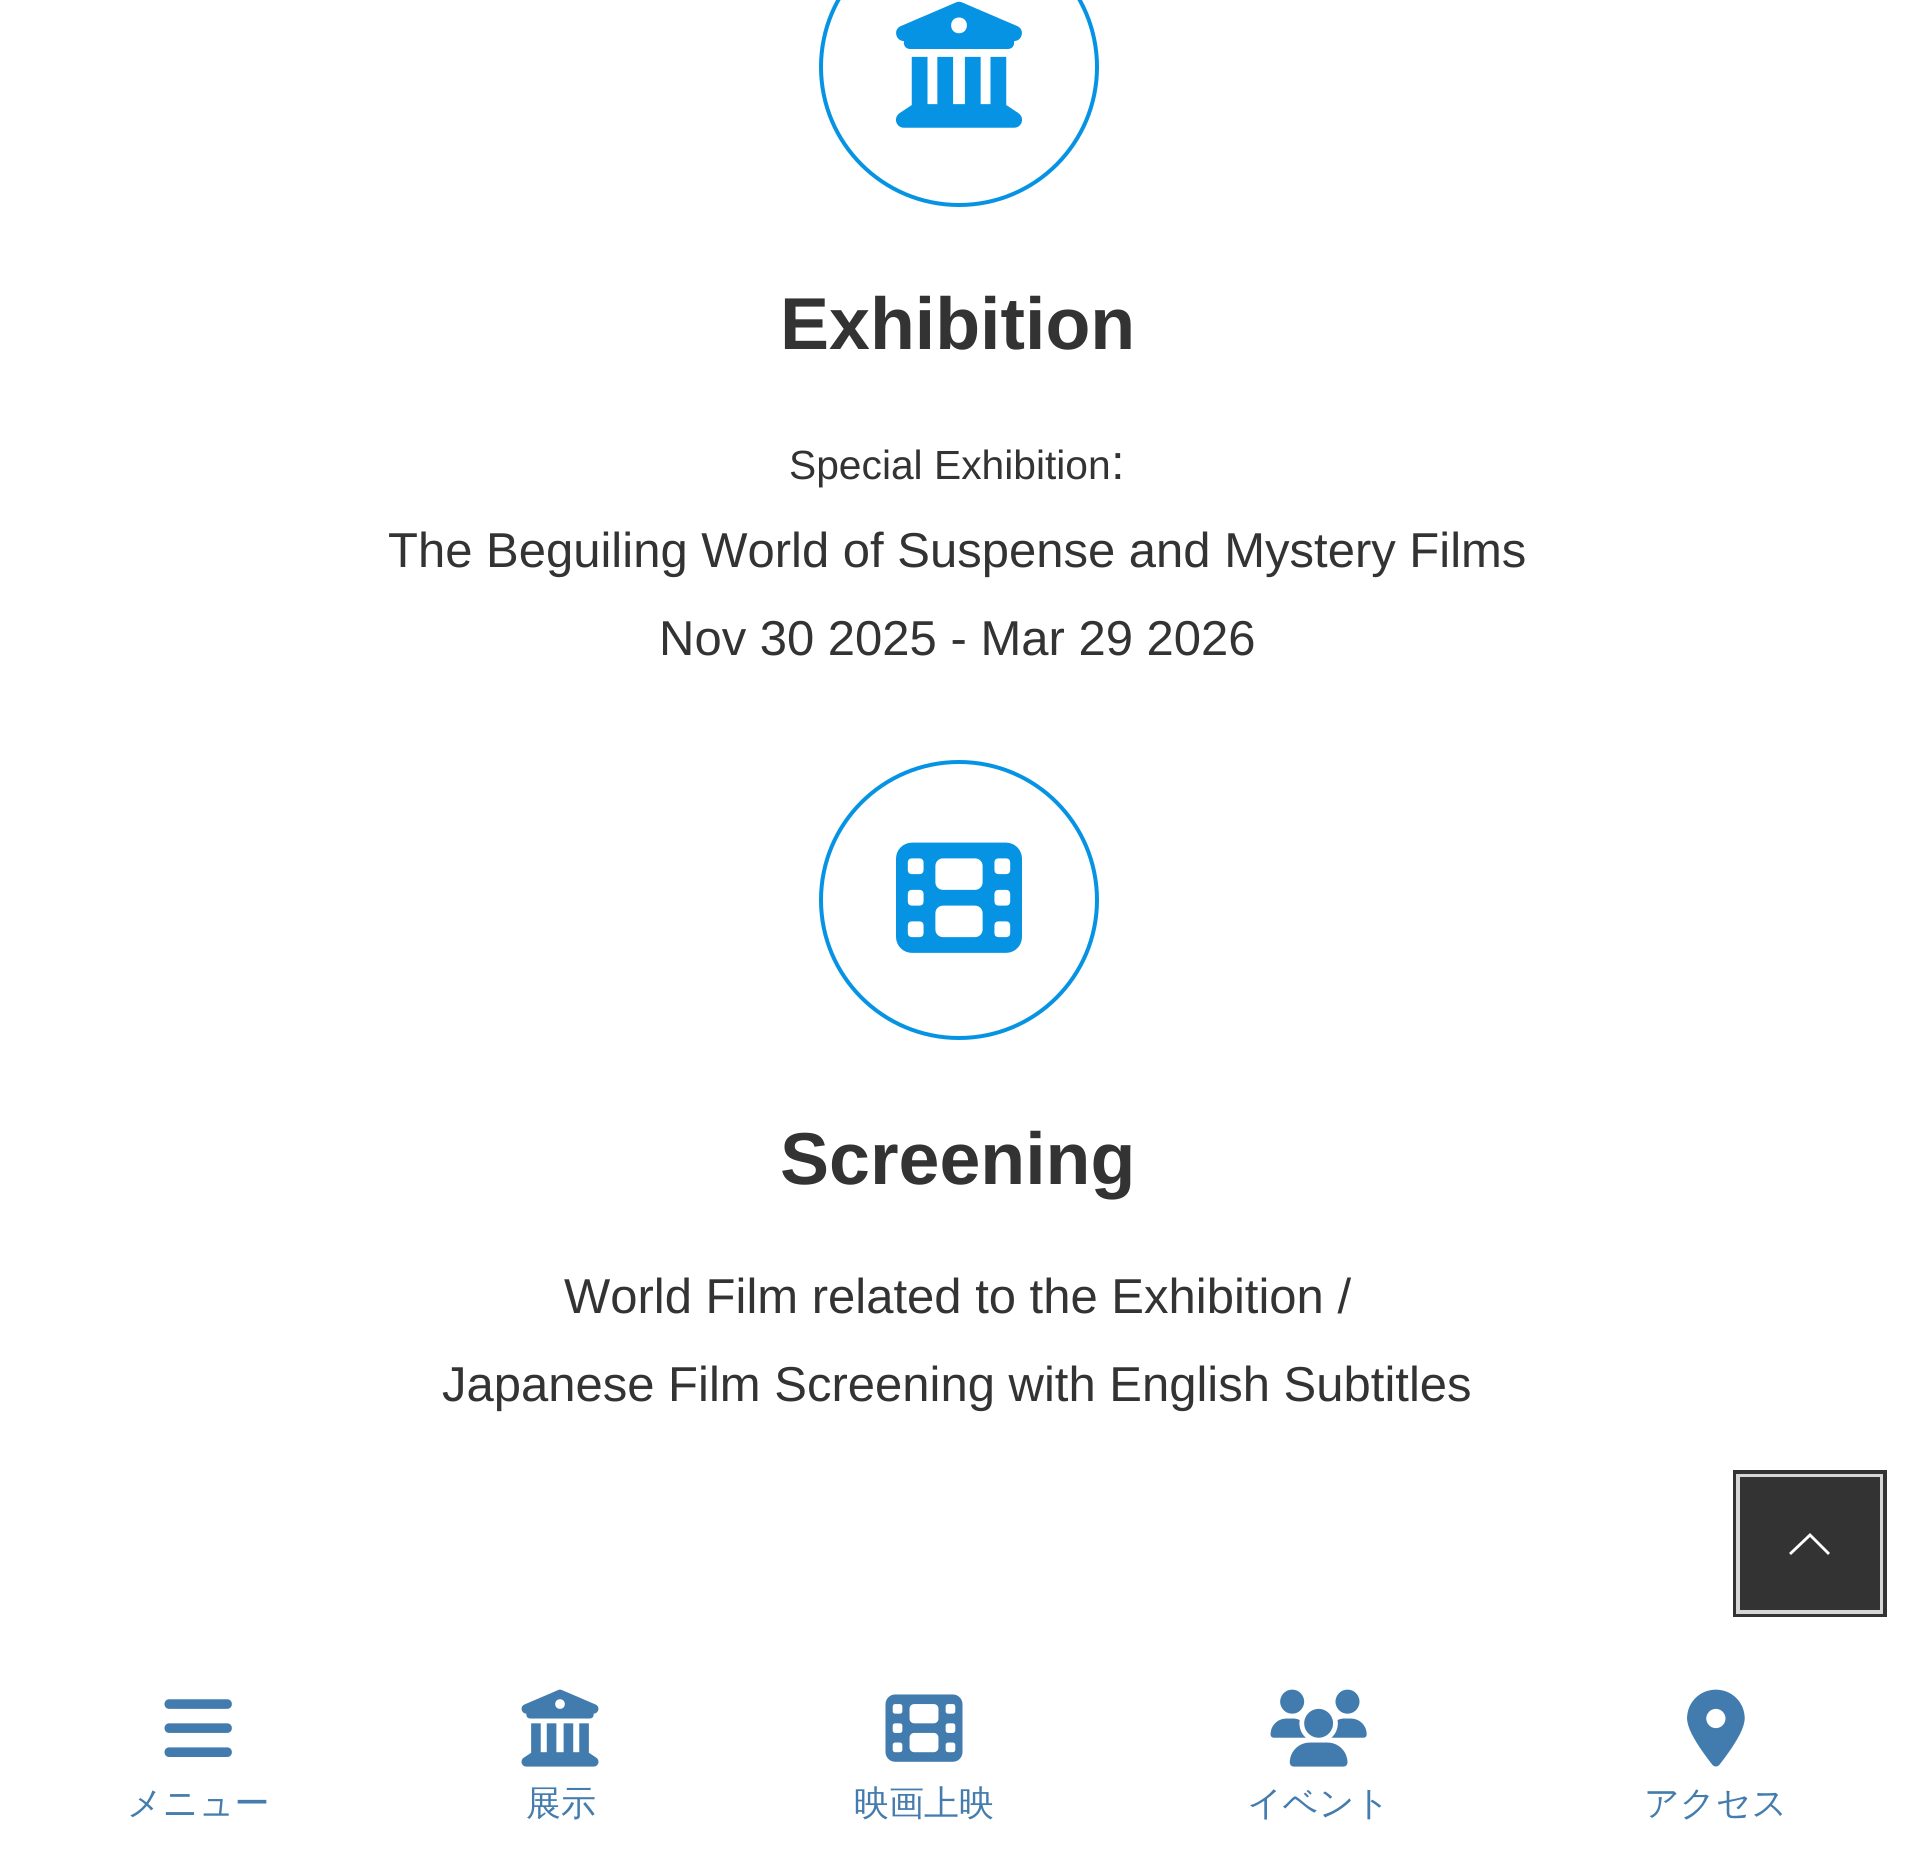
import math
import cairo

surface = cairo.ImageSurface(cairo.Format.RGB24, 1912, 1860)
ctx = cairo.Context(surface)
options = cairo.FontOptions()
options.set_hint_metrics(cairo.HintMetrics.OFF)
options.set_hint_style(cairo.HintStyle.NONE)
ctx.set_font_options(options)
ctx.set_miter_limit(4)


def ink(r, g, b):
    ctx.set_source_rgb(r / 255, g / 255, b / 255)


def write(x, y, s, family, size, color, bold=False, italic=False):
    ctx.select_font_face(family, cairo.FontSlant.ITALIC if italic else cairo.FontSlant.NORMAL, cairo.FontWeight.BOLD if bold else cairo.FontWeight.NORMAL)
    ctx.set_font_size(size)
    ink(*color)
    ctx.move_to(x, y)
    ctx.show_text(s)


def block(x, y, w, h, *color):
    ink(*color)
    ctx.rectangle(x, y, w, h)
    ctx.fill()


def paste(path, x, y, w, h):
    ctx.save()
    ctx.set_source_surface(cairo.ImageSurface.create_from_png(path), x, y)
    ctx.rectangle(x, y, w, h)
    ctx.fill()
    ctx.restore()


s1 = dict(family="Liberation Sans", size=73.5, color=(51, 51, 51), bold=True)
s2 = dict(family="Liberation Sans", size=40.75, color=(51, 51, 51))
s3 = dict(family="Liberation Sans", size=49, color=(51, 51, 51))
s4 = dict(family="WenQuanYi Zen Hei Medium", size=35, color=(67, 124, 173))

ink(255, 255, 255)
ctx.paint()
ctx.arc(959, 67, 138, 0, 2 * math.pi)
ink(6, 147, 227)
ctx.set_line_width(4)
ctx.stroke()
paste("pic1.png", 896, 1, 126, 127)
write(780, 349, "Exhibition", **s1)
write(789, 479, "Special Exhibition", **s2)
write(1111, 479, ":", **s3)
write(388, 567, "The Beguiling World of Suspense and Mystery Films", **s3)
write(659, 655, "Nov 30 2025 - Mar 29 2026", **s3)
ctx.new_path()
ctx.arc(959, 900, 138, 0, 2 * math.pi)
ink(6, 147, 227)
ctx.stroke()
paste("pic2.png", 896, 842, 126, 111)
write(780, 1184, "Screening", **s1)
write(564, 1313, "World Film related to the Exhibition /", **s3)
write(442, 1401, "Japanese Film Screening with English Subtitles", **s3)
ctx.rectangle(1736.5, 1473.5, 147, 140)
ctx.set_line_width(7)
ctx.stroke()
ctx.rectangle(1738, 1476, 143, 136)
ctx.set_source_rgba(1, 1, 1, 0.8)
ctx.set_line_width(4)
ctx.stroke()
block(1740, 1477, 140, 133, 51, 51, 51)
ink(255, 255, 255)
ctx.new_path()
ctx.move_to(1830, 1553)
ctx.line_to(1828, 1555)
ctx.line_to(1810, 1537)
ctx.line_to(1791, 1555)
ctx.line_to(1789, 1553)
ctx.line_to(1810, 1533)
ctx.close_path()
ctx.fill()
paste("pic3.png", 164, 1699, 68, 58)
write(127, 1815, "メニュー", **s4)
paste("pic4.png", 521, 1689, 78, 78)
write(526, 1815, "展示", **s4)
paste("pic5.png", 885, 1694, 78, 68)
write(854, 1815, "映画上映", **s4)
paste("pic6.png", 1270, 1689, 97, 78)
write(1247, 1815, "イベント", **s4)
paste("pic7.png", 1687, 1689, 58, 78)
write(1644, 1815, "アクセス", **s4)
surface.write_to_png("screenshot.png")
